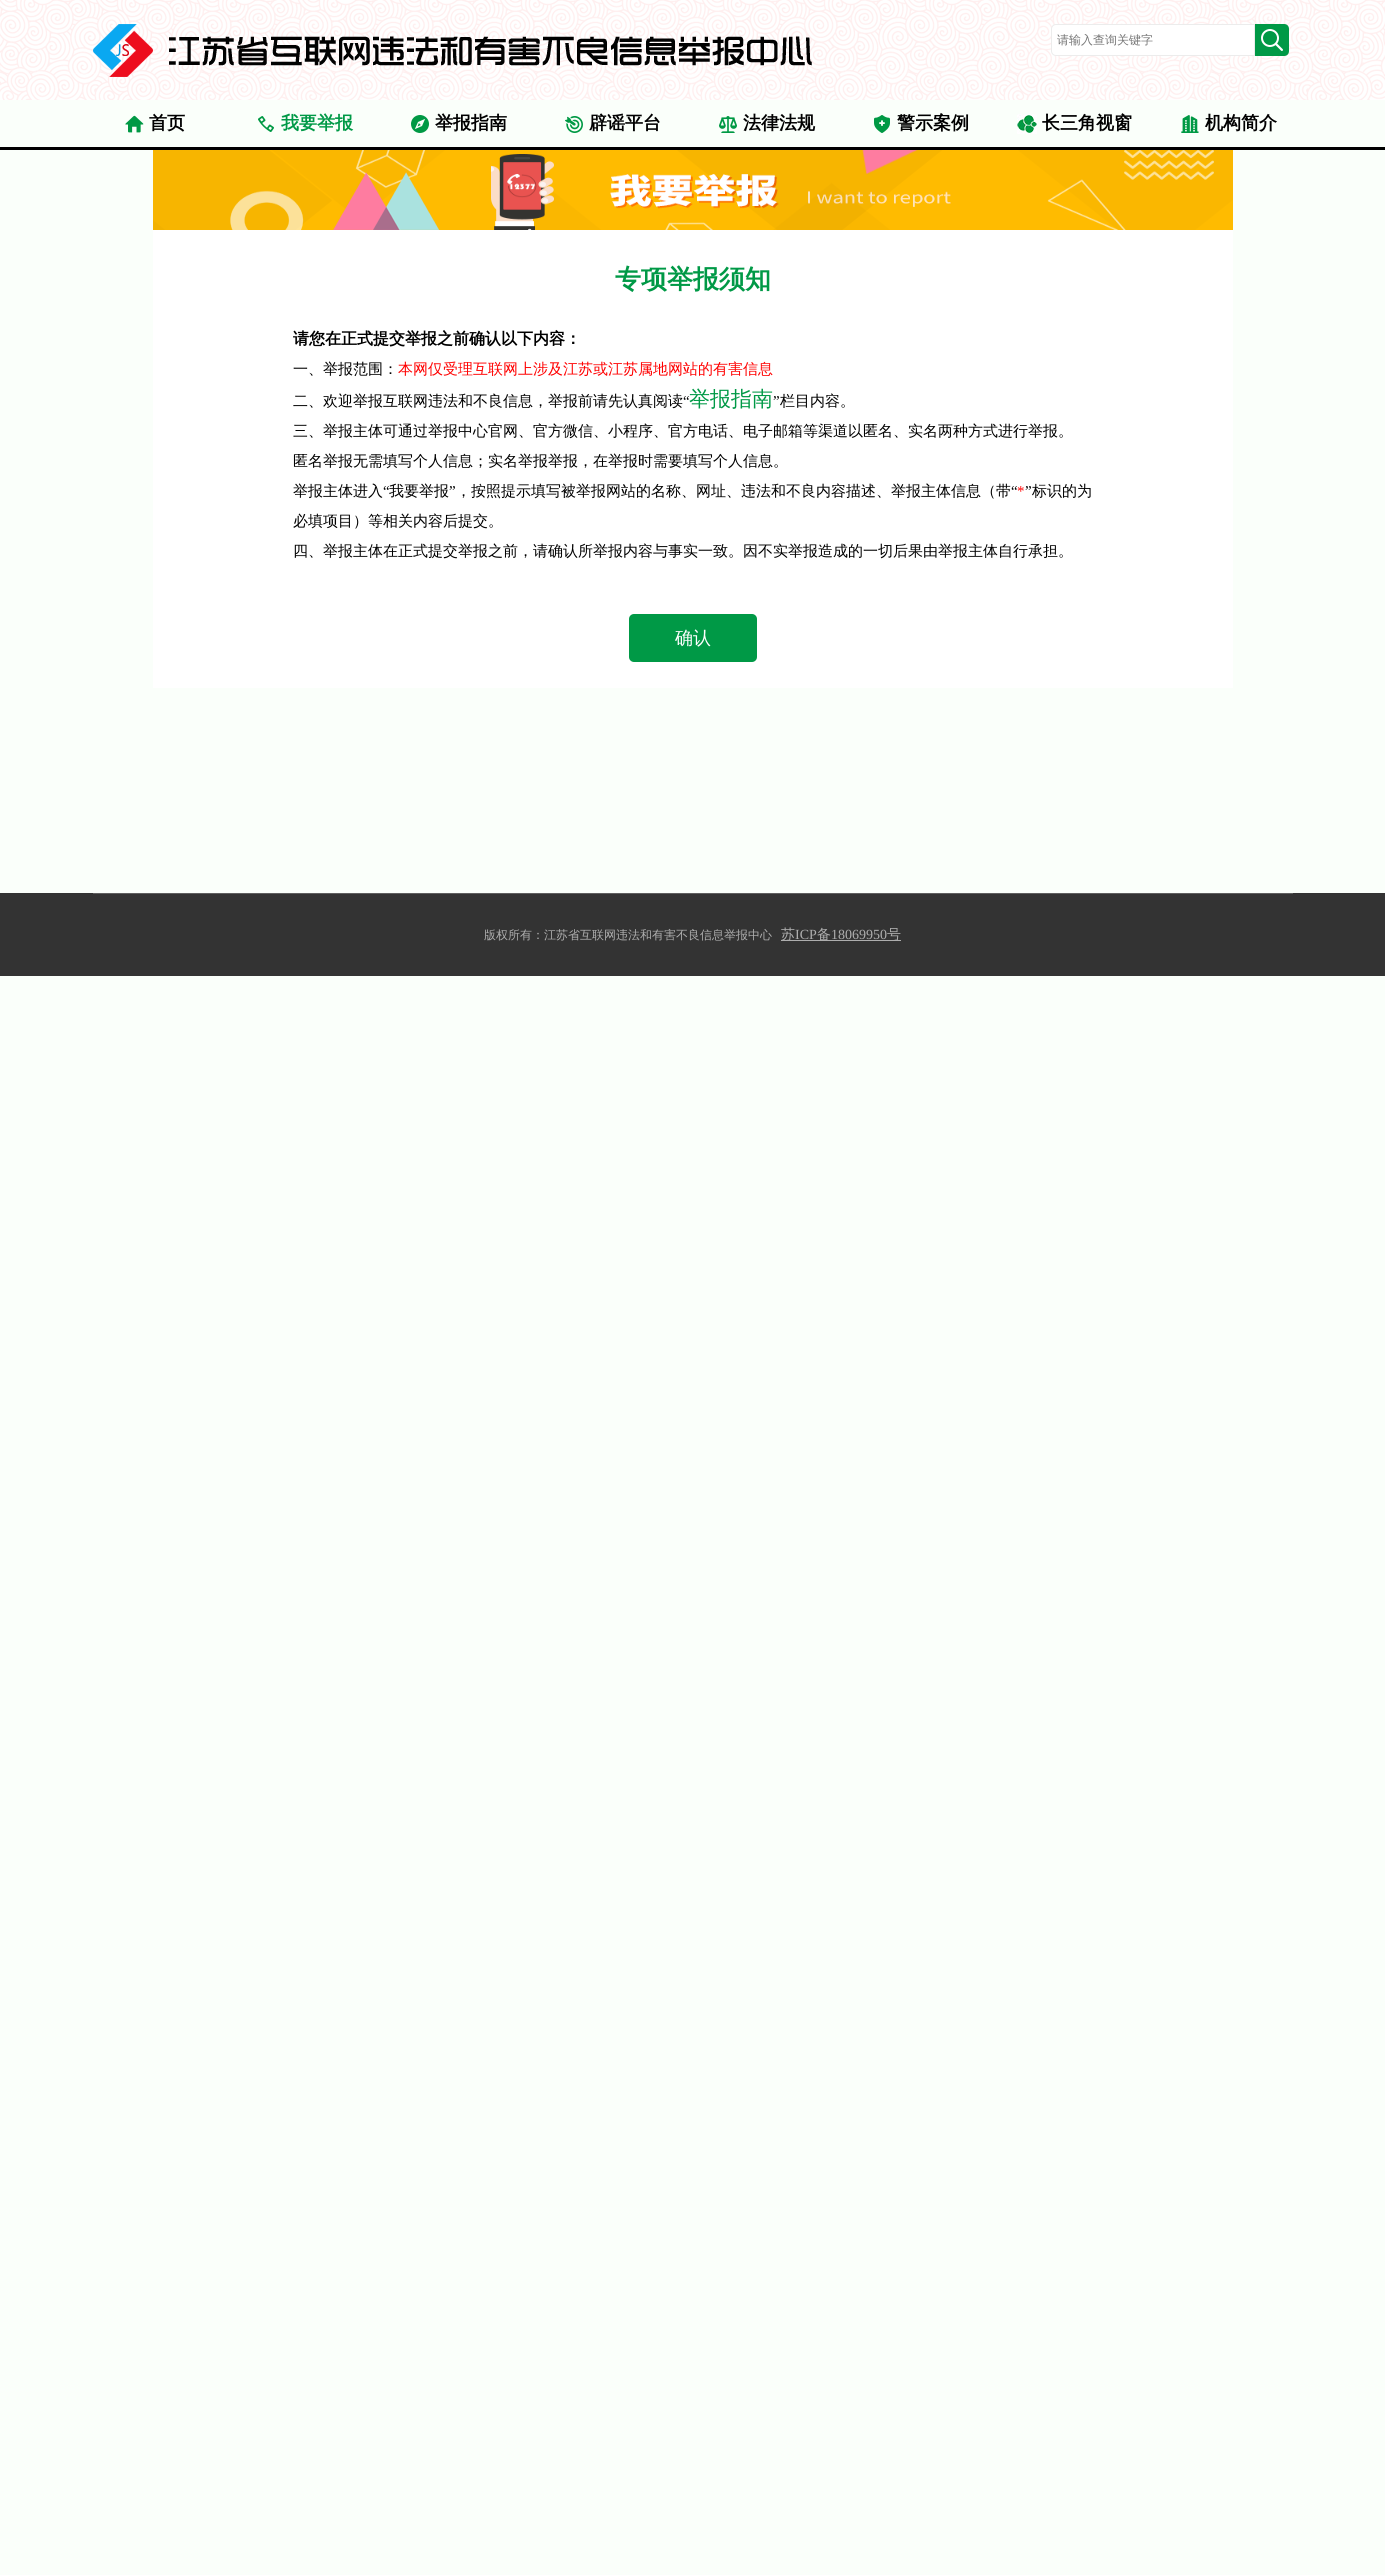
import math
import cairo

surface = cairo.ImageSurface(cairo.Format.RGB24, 1385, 2575)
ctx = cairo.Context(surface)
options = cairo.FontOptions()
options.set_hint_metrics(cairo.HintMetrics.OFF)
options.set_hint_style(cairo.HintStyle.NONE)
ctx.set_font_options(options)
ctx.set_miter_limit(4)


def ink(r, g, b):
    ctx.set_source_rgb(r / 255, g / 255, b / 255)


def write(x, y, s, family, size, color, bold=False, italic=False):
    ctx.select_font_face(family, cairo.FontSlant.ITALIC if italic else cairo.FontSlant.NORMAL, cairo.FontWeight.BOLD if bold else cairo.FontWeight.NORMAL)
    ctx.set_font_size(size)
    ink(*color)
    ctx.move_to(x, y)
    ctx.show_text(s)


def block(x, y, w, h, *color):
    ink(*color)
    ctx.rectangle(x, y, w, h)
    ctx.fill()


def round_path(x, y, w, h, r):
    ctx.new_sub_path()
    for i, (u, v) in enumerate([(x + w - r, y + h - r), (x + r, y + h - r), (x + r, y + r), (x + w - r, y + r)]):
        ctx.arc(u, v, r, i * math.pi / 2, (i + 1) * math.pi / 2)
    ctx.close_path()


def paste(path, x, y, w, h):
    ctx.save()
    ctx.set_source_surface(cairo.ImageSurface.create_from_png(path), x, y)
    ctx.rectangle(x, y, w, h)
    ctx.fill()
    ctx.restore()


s1 = dict(family="WenQuanYi Zen Hei Medium", size=12, color=(117, 117, 117))
s2 = dict(family="WenQuanYi Zen Hei", size=18, color=(0, 0, 0), bold=True)
s3 = dict(family="WenQuanYi Zen Hei", size=18, color=(0, 153, 70), bold=True)
s4 = dict(family="WenQuanYi Zen Hei", size=26, color=(0, 153, 70), bold=True)
s5 = dict(family="WenQuanYi Zen Hei", size=16, color=(0, 0, 0), bold=True)
s6 = dict(family="WenQuanYi Zen Hei Medium", size=15, color=(0, 0, 0))
s7 = dict(family="WenQuanYi Zen Hei Medium", size=15, color=(255, 0, 0))
s8 = dict(family="Liberation Serif", size=15, color=(0, 0, 0))
s9 = dict(family="WenQuanYi Zen Hei Medium", size=21, color=(0, 153, 70))
s10 = dict(family="Liberation Serif", size=15, color=(255, 0, 0))
s11 = dict(family="WenQuanYi Zen Hei Medium", size=18, color=(255, 255, 255))
s12 = dict(family="WenQuanYi Zen Hei Medium", size=12, color=(174, 174, 174))
s13 = dict(family="WenQuanYi Zen Hei Medium", size=14, color=(174, 174, 174))
s14 = dict(family="Liberation Serif", size=14, color=(174, 174, 174))

ink(250, 255, 250)
ctx.paint()
block(0, 147, 1385, 3, 0, 0, 0)
paste("pic1.png", 0, 0, 1385, 100)
paste("pic2.png", 93, 24, 719, 53)
ink(255, 255, 255)
ctx.new_path()
ctx.move_to(1056, 24.5)
ctx.line_to(1254.5, 24.5)
ctx.line_to(1254.5, 55.5)
ctx.line_to(1056, 55.5)
ctx.curve_to(1053.5, 55.5, 1051.5, 53.5, 1051.5, 51)
ctx.line_to(1051.5, 29)
ctx.curve_to(1051.5, 26.5, 1053.5, 24.5, 1056, 24.5)
ctx.close_path()
ctx.fill_preserve()
ink(236, 236, 236)
ctx.set_line_width(1)
ctx.stroke()
write(1057, 44, "请输入查询关键字", **s1)
ink(0, 153, 70)
ctx.new_path()
ctx.move_to(1255, 24)
ctx.line_to(1284, 24)
ctx.curve_to(1287, 24, 1289, 26, 1289, 29)
ctx.line_to(1289, 51)
ctx.curve_to(1289, 54, 1287, 56, 1284, 56)
ctx.line_to(1255, 56)
ctx.close_path()
ctx.fill()
paste("pic3.png", 1261, 29, 22, 22)
paste("pic4.png", 125, 115, 19, 18)
write(149, 129, "首页", **s2)
paste("pic5.png", 258, 116, 16, 16)
write(281, 129, "我要举报", **s3)
paste("pic6.png", 411, 115, 18, 18)
write(435, 129, "举报指南", **s2)
paste("pic7.png", 565, 116, 18, 17)
write(589, 129, "辟谣平台", **s2)
paste("pic8.png", 719, 116, 18, 17)
write(743, 129, "法律法规", **s2)
paste("pic9.png", 874, 115, 16, 18)
write(897, 129, "警示案例", **s2)
paste("pic10.png", 1017, 114, 20, 20)
write(1042, 129, "长三角视窗", **s2)
paste("pic11.png", 1181, 115, 18, 18)
write(1205, 129, "机构简介", **s2)
block(153, 230, 1080, 458, 255, 255, 255)
paste("pic12.png", 153, 150, 1080, 80)
write(615, 288, "专项举报须知", **s4)
write(293, 344, "请您在正式提交举报之前确认以下内容：", **s5)
write(293, 374, "一、举报范围：", **s6)
write(398, 374, "本网仅受理互联网上涉及江苏或江苏属地网站的有害信息", **s7)
write(293, 406, "二、欢迎举报互联网违法和不良信息，举报前请先认真阅读", **s6)
write(683, 406, "“", **s8)
write(689, 406, "举报指南", **s9)
write(773, 406, "”", **s8)
write(780, 406, "栏目内容。", **s6)
write(293, 436, "三、举报主体可通过举报中心官网、官方微信、小程序、官方电话、电子邮箱等渠道以匿名、实名两种方式进行举报。", **s6)
write(293, 466, "匿名举报无需填写个人信息；实名举报举报，在举报时需要填写个人信息。", **s6)
write(293, 496, "举报主体进入", **s6)
write(383, 496, "“", **s8)
write(389, 496, "我要举报", **s6)
write(449, 496, "”", **s8)
write(456, 496, "，按照提示填写被举报网站的名称、网址、违法和不良内容描述、举报主体信息（带", **s6)
write(1011, 496, "“", **s8)
write(1017, 496, "*", **s10)
write(1025, 496, "”", **s8)
write(1032, 496, "标识的为", **s6)
write(293, 526, "必填项目）等相关内容后提交。", **s6)
write(293, 556, "四、举报主体在正式提交举报之前，请确认所举报内容与事实一致。因不实举报造成的一切后果由举报主体自行承担。", **s6)
ink(0, 153, 70)
round_path(629, 614, 128, 48, 5)
ctx.fill()
write(675, 644, "确认", **s11)
block(0, 893, 1385, 83, 51, 51, 51)
block(93, 893, 1200, 1, 95, 95, 95)
write(484, 939, "版权所有：江苏省互联网违法和有害不良信息举报中心", **s12)
block(781, 940, 120, 1, 174, 174, 174)
write(781, 939, "苏", **s13)
write(795, 939, "ICP", **s14)
write(817, 939, "备", **s13)
write(831, 939, "18069950", **s14)
write(887, 939, "号", **s13)
surface.write_to_png("screenshot.png")
